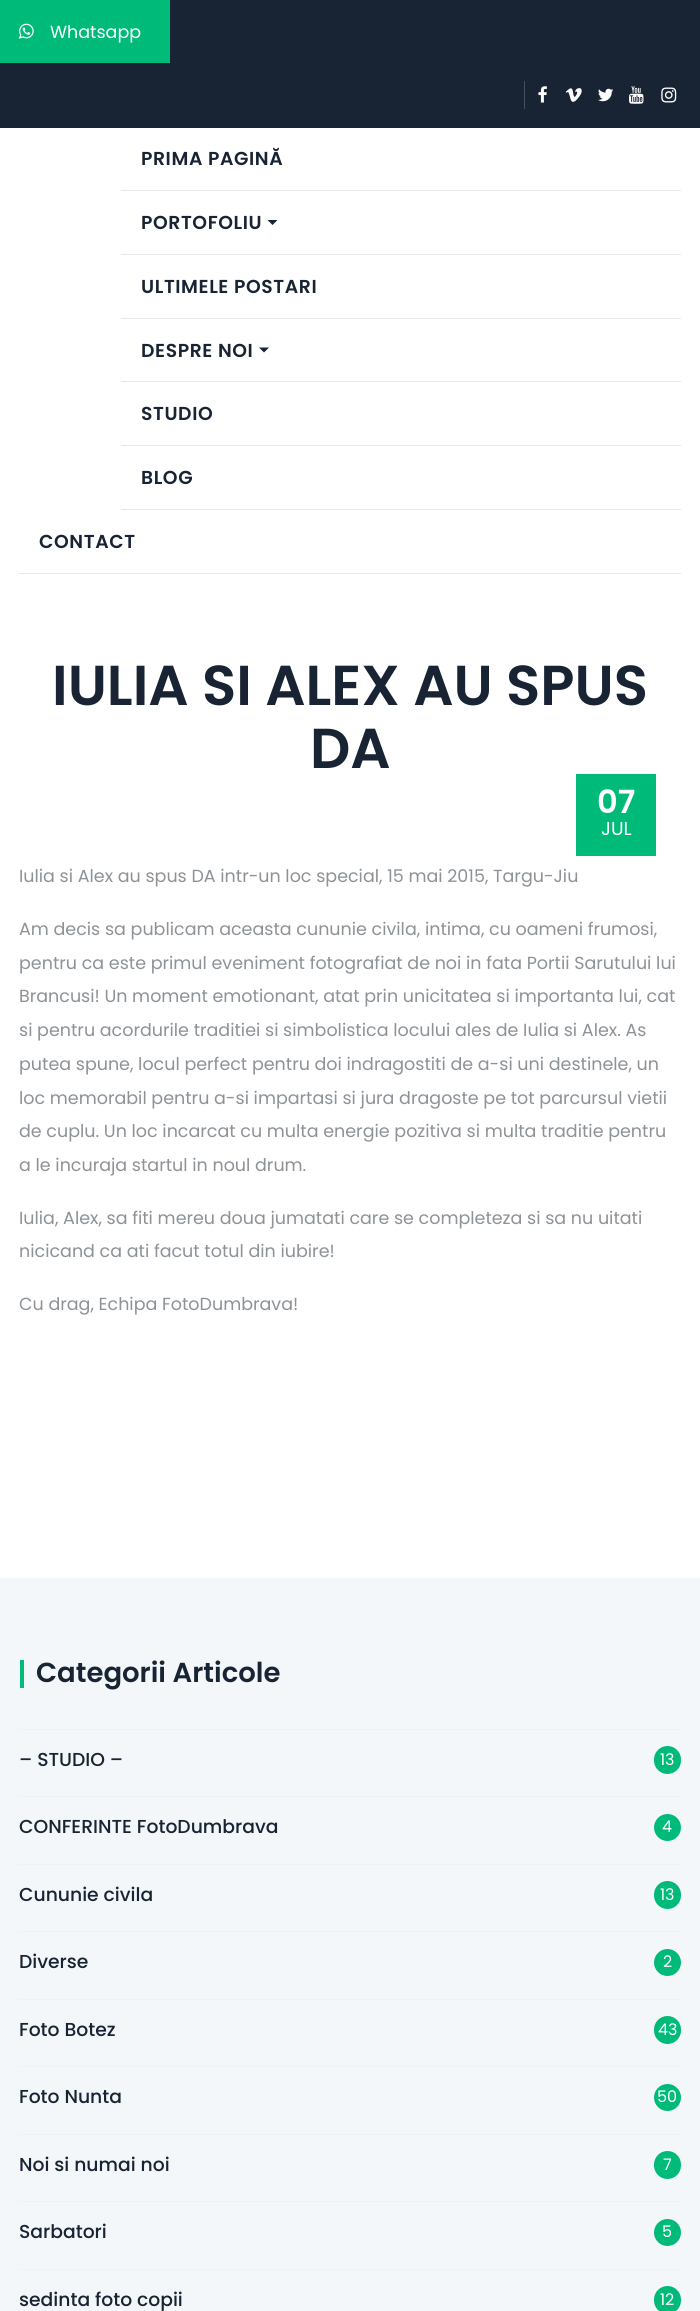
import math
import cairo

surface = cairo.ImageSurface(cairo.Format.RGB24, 700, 2311)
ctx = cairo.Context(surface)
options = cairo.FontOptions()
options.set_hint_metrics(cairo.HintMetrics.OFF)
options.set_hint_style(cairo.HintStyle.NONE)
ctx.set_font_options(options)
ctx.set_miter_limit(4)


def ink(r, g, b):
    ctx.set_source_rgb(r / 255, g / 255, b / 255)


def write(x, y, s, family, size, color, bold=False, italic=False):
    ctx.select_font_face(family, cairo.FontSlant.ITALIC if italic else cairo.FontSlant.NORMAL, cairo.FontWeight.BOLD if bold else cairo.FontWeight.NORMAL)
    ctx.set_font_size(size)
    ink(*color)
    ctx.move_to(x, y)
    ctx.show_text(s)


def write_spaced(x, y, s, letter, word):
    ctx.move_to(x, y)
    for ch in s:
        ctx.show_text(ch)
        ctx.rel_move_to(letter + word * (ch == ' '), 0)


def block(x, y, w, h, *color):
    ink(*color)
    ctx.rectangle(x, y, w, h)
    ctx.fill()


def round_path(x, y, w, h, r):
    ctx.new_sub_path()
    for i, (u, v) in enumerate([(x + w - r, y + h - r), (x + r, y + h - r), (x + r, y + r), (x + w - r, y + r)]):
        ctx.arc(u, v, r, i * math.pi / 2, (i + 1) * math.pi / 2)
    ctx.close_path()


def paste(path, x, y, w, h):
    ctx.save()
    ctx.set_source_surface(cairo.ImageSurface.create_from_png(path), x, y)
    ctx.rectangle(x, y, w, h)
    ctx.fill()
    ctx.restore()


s1 = dict(family="Poppins", size=17.5, color=(255, 255, 255))
s2 = dict(family="Poppins SemiBold", size=56.25, color=(24, 35, 51))
s3 = dict(family="Poppins SemiBold", size=32, color=(255, 255, 255))
s4 = dict(family="Poppins", size=18.75, color=(255, 255, 255))
s5 = dict(family="Poppins", size=17.5, color=(141, 146, 151))
s6 = dict(family="Poppins SemiBold", size=27.5, color=(24, 35, 51))
s7 = dict(family="Poppins Medium", size=18.75, color=(24, 35, 51))
s8 = dict(family="Poppins", size=16, color=(255, 255, 255))

ink(243, 247, 249)
ctx.paint()
block(0, 0, 700, 128, 24, 35, 51)
block(0, 0, 170, 63, 0, 186, 121)
paste("pic1.png", 18, 23, 16, 16)
write(50, 38, "Whatsapp", **s1)
block(524, 81, 1, 28, 70, 79, 92)
paste("pic2.png", 538, 86, 9, 17)
paste("pic3.png", 565, 88, 17, 14)
paste("pic4.png", 598, 88, 16, 14)
paste("pic5.png", 629, 86, 15, 18)
paste("pic6.png", 661, 87, 16, 16)
block(0, 128, 700, 1450, 255, 255, 255)
block(121, 190, 560, 1, 231, 232, 234)
ctx.select_font_face("Poppins SemiBold")
ctx.set_font_size(18.75)
ink(24, 35, 51)
write_spaced(141, 165, "PRIMA PAGINĂ", 0.6, 0)
block(121, 254, 560, 1, 231, 232, 234)
ink(24, 35, 51)
write_spaced(141, 229, "PORTOFOLIU", 0.6, 0)
ctx.new_path()
ctx.move_to(267.5, 220)
ctx.line_to(277.5, 220)
ctx.line_to(272.5, 225)
ctx.close_path()
ctx.fill()
block(121, 318, 560, 1, 231, 232, 234)
ink(24, 35, 51)
write_spaced(141, 293, "ULTIMELE POSTARI", 0.6, 0)
block(121, 381, 560, 1, 231, 232, 234)
ink(24, 35, 51)
write_spaced(141, 357, "DESPRE NOI", 0.6, 0)
ctx.new_path()
ctx.move_to(259, 347.5)
ctx.line_to(269, 347.5)
ctx.line_to(264, 352.5)
ctx.close_path()
ctx.fill()
block(121, 445, 560, 1, 231, 232, 234)
ink(24, 35, 51)
write_spaced(141, 420, "STUDIO", 0.6, 0)
block(121, 509, 560, 1, 231, 232, 234)
ink(24, 35, 51)
write_spaced(141, 484, "BLOG", 0.6, 0)
block(19, 573, 662, 1, 231, 232, 234)
ink(24, 35, 51)
write_spaced(39, 548, "CONTACT", 0.6, 0)
write(52, 705, "IULIA SI ALEX AU SPUS", **s2)
write(310, 768, "DA", **s2)
block(576, 774, 80, 82, 0, 186, 121)
write(597, 813, "07", **s3)
write(601, 835, "JUL", **s4)
write(19, 882, "Iulia si Alex au spus DA intr-un loc special, 15 mai 2015, Targu-Jiu", **s5)
write(19, 935, "Am decis sa publicam aceasta cununie civila, intima, cu oameni frumosi,", **s5)
write(19, 969, "pentru ca este primul eveniment fotografiat de noi in fata Portii Sarutului lui", **s5)
write(19, 1002, "Brancusi! Un moment emotionant, atat prin unicitatea si importanta lui, cat", **s5)
write(19, 1036, "si pentru acordurile traditiei si simbolistica locului ales de Iulia si Alex. As", **s5)
write(19, 1070, "putea spune, locul perfect pentru doi indragostiti de a-si uni destinele, un", **s5)
write(19, 1104, "loc memorabil pentru a-si impartasi si jura dragoste pe tot parcursul vietii", **s5)
write(19, 1137, "de cuplu. Un loc incarcat cu multa energie pozitiva si multa traditie pentru", **s5)
write(19, 1171, "a le incuraja startul in noul drum.", **s5)
write(19, 1224, "Iulia, Alex, sa fiti mereu doua jumatati care se completeza si sa nu uitati", **s5)
write(19, 1257, "nicicand ca ati facut totul din iubire!", **s5)
write(19, 1310, "Cu drag, Echipa FotoDumbrava!", **s5)
block(20, 1660, 4, 28, 0, 186, 121)
write(36, 1682, "Categorii Articole", **s6)
block(19, 1729, 662, 1, 241, 241, 241)
write(19, 1766, "– STUDIO –", **s7)
ink(0, 186, 121)
round_path(654, 1746, 27, 28, 13.5)
ctx.fill()
write(660, 1765, "13", **s8)
block(19, 1796, 662, 1, 241, 241, 241)
write(19, 1833, "CONFERINTE FotoDumbrava", **s7)
ink(0, 186, 121)
ctx.new_path()
ctx.arc(667.5, 1827.5, 13.5, 0, 2 * math.pi)
ctx.fill()
write(662, 1832, "4", **s8)
block(19, 1864, 662, 1, 241, 241, 241)
write(19, 1901, "Cununie civila", **s7)
ink(0, 186, 121)
round_path(654, 1881, 27, 28, 13.5)
ctx.fill()
write(660, 1900, "13", **s8)
block(19, 1931, 662, 1, 241, 241, 241)
write(19, 1968, "Diverse", **s7)
ink(0, 186, 121)
ctx.new_path()
ctx.arc(667.5, 1962.5, 13.5, 0, 2 * math.pi)
ctx.fill()
write(663, 1967, "2", **s8)
block(19, 1999, 662, 1, 241, 241, 241)
write(19, 2036, "Foto Botez", **s7)
ink(0, 186, 121)
round_path(654, 2016, 27, 28, 13.5)
ctx.fill()
write(658, 2035, "43", **s8)
block(19, 2066, 662, 1, 241, 241, 241)
write(19, 2103, "Foto Nunta", **s7)
ink(0, 186, 121)
ctx.new_path()
ctx.arc(667.5, 2097.5, 13.5, 0, 2 * math.pi)
ctx.fill()
write(657, 2102, "50", **s8)
block(19, 2134, 662, 1, 241, 241, 241)
write(19, 2171, "Noi si numai noi", **s7)
ink(0, 186, 121)
round_path(654, 2151, 27, 28, 13.5)
ctx.fill()
write(663, 2170, "7", **s8)
block(19, 2201, 662, 1, 241, 241, 241)
write(19, 2238, "Sarbatori", **s7)
ink(0, 186, 121)
ctx.new_path()
ctx.arc(667.5, 2232.5, 13.5, 0, 2 * math.pi)
ctx.fill()
write(662, 2237, "5", **s8)
block(19, 2269, 662, 1, 241, 241, 241)
write(19, 2306, "sedinta foto copii", **s7)
ink(0, 186, 121)
round_path(654, 2286, 27, 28, 13.5)
ctx.fill()
write(660, 2305, "12", **s8)
surface.write_to_png("screenshot.png")
